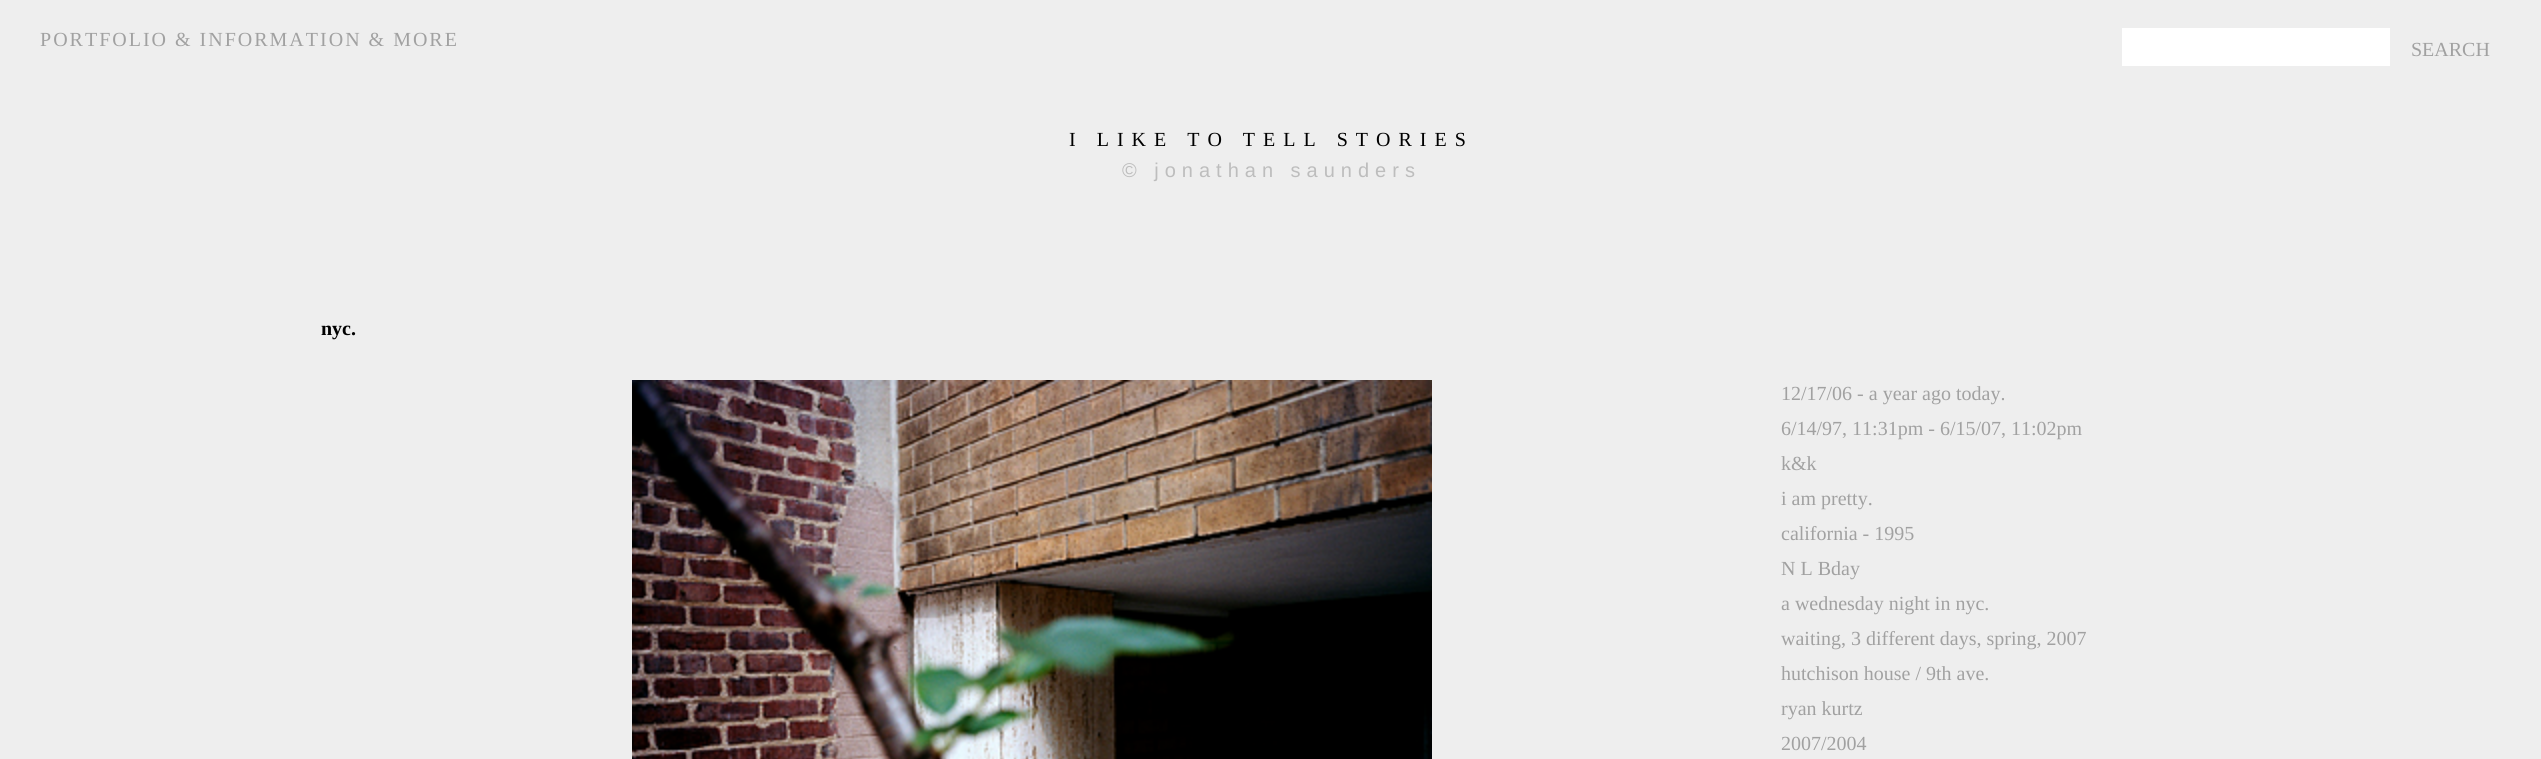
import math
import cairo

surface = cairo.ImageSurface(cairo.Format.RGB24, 2541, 759)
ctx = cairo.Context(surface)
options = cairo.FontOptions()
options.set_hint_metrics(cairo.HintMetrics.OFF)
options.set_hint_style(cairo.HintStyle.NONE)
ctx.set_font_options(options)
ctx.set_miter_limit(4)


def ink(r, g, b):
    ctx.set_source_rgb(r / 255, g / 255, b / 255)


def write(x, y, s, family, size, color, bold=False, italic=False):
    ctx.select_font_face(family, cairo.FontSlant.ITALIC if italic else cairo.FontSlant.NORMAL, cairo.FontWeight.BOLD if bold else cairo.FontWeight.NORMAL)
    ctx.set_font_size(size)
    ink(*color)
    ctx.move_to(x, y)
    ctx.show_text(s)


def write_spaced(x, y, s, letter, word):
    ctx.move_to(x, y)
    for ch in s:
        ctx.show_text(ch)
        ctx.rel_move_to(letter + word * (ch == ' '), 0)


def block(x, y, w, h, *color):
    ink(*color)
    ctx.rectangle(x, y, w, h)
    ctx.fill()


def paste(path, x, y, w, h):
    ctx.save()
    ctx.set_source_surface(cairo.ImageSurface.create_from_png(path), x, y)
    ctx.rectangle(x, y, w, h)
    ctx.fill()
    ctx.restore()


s1 = dict(family="Liberation Serif", size=20, color=(161, 161, 161))
s2 = dict(family="Liberation Serif", size=20, color=(0, 0, 0), bold=True)

ink(238, 238, 238)
ctx.paint()
ctx.select_font_face("Liberation Serif")
ctx.set_font_size(20)
ink(161, 161, 161)
write_spaced(40, 46, "PORTFOLIO & INFORMATION & MORE", 2, 0)
block(2122, 28, 268, 38, 255, 255, 255)
write(2411, 56, "SEARCH", **s1)
ink(0, 0, 0)
write_spaced(1069, 146, "I LIKE TO TELL STORIES", 8, 0)
ctx.select_font_face("Liberation Sans")
ink(189, 189, 189)
write_spaced(1122, 177, "© jonathan saunders", 6, 0)
write(321, 335, "nyc.", **s2)
paste("pic1.png", 632, 380, 800, 379)
write(1781, 400, "12/17/06 - a year ago today.", **s1)
write(1781, 435, "6/14/97, 11:31pm - 6/15/07, 11:02pm", **s1)
write(1781, 470, "k&k", **s1)
write(1781, 505, "i am pretty.", **s1)
write(1781, 540, "california - 1995", **s1)
write(1781, 575, "N L Bday", **s1)
write(1781, 610, "a wednesday night in nyc.", **s1)
write(1781, 645, "waiting, 3 different days, spring, 2007", **s1)
write(1781, 680, "hutchison house / 9th ave.", **s1)
write(1781, 715, "ryan kurtz", **s1)
write(1781, 750, "2007/2004", **s1)
surface.write_to_png("screenshot.png")
